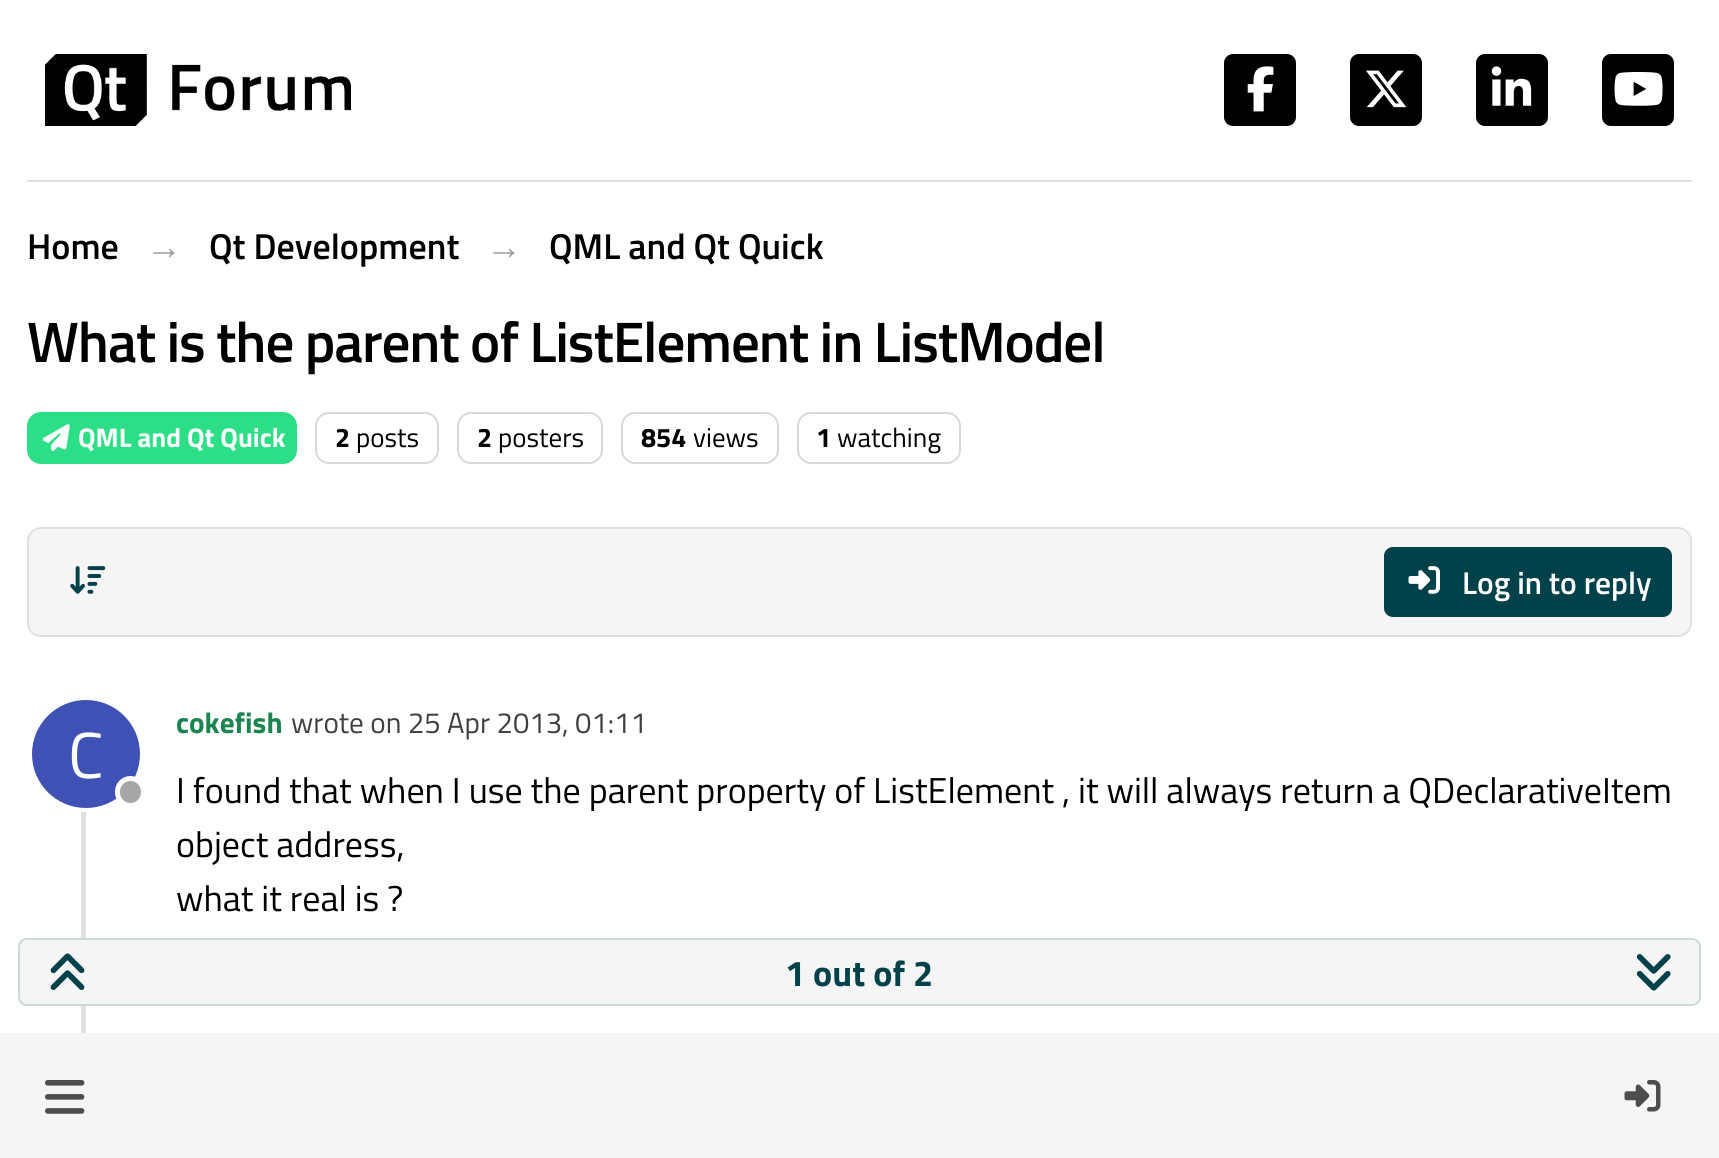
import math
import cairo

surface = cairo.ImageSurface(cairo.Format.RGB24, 1719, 1158)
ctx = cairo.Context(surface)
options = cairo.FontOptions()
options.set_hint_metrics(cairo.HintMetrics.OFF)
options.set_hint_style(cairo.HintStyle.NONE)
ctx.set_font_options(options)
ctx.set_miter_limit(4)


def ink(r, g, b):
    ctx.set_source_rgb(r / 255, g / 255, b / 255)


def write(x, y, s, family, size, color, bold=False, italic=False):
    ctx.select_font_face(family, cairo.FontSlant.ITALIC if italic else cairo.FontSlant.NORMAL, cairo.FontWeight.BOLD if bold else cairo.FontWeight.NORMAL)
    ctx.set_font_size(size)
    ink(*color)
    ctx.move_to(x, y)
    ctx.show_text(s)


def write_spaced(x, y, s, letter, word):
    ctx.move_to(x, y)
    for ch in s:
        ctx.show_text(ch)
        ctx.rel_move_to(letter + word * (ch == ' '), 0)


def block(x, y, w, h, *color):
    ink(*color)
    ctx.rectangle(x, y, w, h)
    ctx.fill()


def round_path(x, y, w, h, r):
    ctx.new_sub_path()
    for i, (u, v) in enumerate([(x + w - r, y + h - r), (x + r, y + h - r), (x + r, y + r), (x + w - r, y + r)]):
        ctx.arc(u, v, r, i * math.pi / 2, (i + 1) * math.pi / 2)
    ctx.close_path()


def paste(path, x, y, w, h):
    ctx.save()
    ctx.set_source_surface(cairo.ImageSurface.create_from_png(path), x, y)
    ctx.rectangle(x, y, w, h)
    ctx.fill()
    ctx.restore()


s1 = dict(family="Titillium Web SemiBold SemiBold", size=36, color=(0, 0, 0))
s2 = dict(family="Liberation Sans", size=36, color=(158, 158, 158), bold=True)
s3 = dict(family="Titillium Web", size=27, color=(255, 255, 255), bold=True)
s4 = dict(family="Titillium Web", size=27, color=(0, 0, 0), bold=True)
s5 = dict(family="Titillium Web", size=27, color=(0, 0, 0))
s6 = dict(family="Titillium Web SemiBold SemiBold", size=31.5, color=(255, 255, 255))
s7 = dict(family="Titillium Web", size=65, color=(255, 255, 255))
s8 = dict(family="Titillium Web", size=29.25, color=(26, 133, 80), bold=True)
s9 = dict(family="Titillium Web", size=29.25, color=(64, 64, 64))
s10 = dict(family="Titillium Web", size=36, color=(0, 0, 0))
s11 = dict(family="Titillium Web", size=36, color=(0, 65, 74), bold=True)

ink(255, 255, 255)
ctx.paint()
block(27, 180, 1665, 2, 224, 224, 224)
paste("pic1.png", 45, 54, 306, 72)
ink(0, 0, 0)
round_path(1224, 54, 72, 72, 9)
ctx.fill()
paste("pic2.png", 1247, 66, 27, 46)
round_path(1350, 54, 72, 72, 9)
ctx.fill()
paste("pic3.png", 1366, 70, 41, 38)
round_path(1476, 54, 72, 72, 9)
ctx.fill()
paste("pic4.png", 1491, 66, 41, 40)
round_path(1602, 54, 72, 72, 9)
ctx.fill()
paste("pic5.png", 1614, 72, 49, 34)
write(27, 259, "Home", **s1)
write(146, 259, "→", **s2)
write(209, 259, "Qt Development", **s1)
write(486, 259, "→", **s2)
write(549, 259, "QML and Qt Quick", **s1)
ctx.set_font_size(57.1)
write_spaced(27, 362, "What is the parent of ListElement in ListModel", -1.15, 0)
ink(44, 222, 133)
round_path(28, 413, 268, 50, 13)
ctx.fill_preserve()
ctx.stroke()
paste("pic6.png", 42, 424, 28, 28)
write(78, 447, "QML and Qt Quick", **s3)
round_path(316, 413, 122, 50, 13)
ink(217, 217, 217)
ctx.stroke()
write(335, 447, "2", **s4)
write(356, 447, "posts", **s5)
round_path(458, 413, 144, 50, 13)
ink(217, 217, 217)
ctx.stroke()
write(477, 447, "2", **s4)
write(498, 447, "posters", **s5)
round_path(622, 413, 156, 50, 13)
ink(217, 217, 217)
ctx.stroke()
write(641, 447, "854", **s4)
write(693, 447, "views", **s5)
round_path(798, 413, 162, 50, 13)
ink(217, 217, 217)
ctx.stroke()
write(816, 447, "1", **s4)
write(837, 447, "watching", **s5)
ink(245, 245, 245)
round_path(28, 528, 1663, 108, 13)
ctx.fill_preserve()
ink(224, 224, 224)
ctx.stroke()
paste("pic7.png", 70, 566, 36, 28)
ink(0, 65, 74)
round_path(1385, 548, 286, 68, 8)
ctx.fill_preserve()
ctx.stroke()
paste("pic8.png", 1408, 566, 32, 28)
write(1462, 594, "Log in to reply", **s6)
block(81, 700, 5, 333, 224, 224, 224)
ctx.new_path()
ctx.arc(85.5, 753.5, 56, 0, 2 * math.pi)
ink(255, 255, 255)
ctx.set_line_width(5)
ctx.stroke()
ink(63, 81, 181)
ctx.arc(86, 754, 54, 0, 2 * math.pi)
ctx.fill()
write(68, 778, "C", **s7)
ink(166, 166, 166)
round_path(117.5, 778.5, 26, 27, 13)
ctx.fill_preserve()
ink(255, 255, 255)
ctx.stroke()
write(176, 733, "cokefish", **s8)
write(291, 733, "wrote on 25 Apr 2013, 01:11", **s9)
write(176, 803, "I found that when I use the parent property of ListElement , it will always return a QDeclarativeItem", **s10)
write(176, 857, "object address,", **s10)
write(176, 911, "what it real is ?", **s10)
ink(245, 245, 245)
round_path(19, 939, 1681, 66, 8)
ctx.fill_preserve()
ink(204, 217, 219)
ctx.set_line_width(2)
ctx.stroke()
paste("pic9.png", 50, 953, 35, 37)
write(785, 986, "1 out of 2", **s11)
paste("pic10.png", 1636, 954, 35, 37)
block(0, 1033, 1719, 125, 245, 245, 245)
paste("pic11.png", 45, 1080, 40, 34)
paste("pic12.png", 1624, 1080, 37, 32)
surface.write_to_png("screenshot.png")
